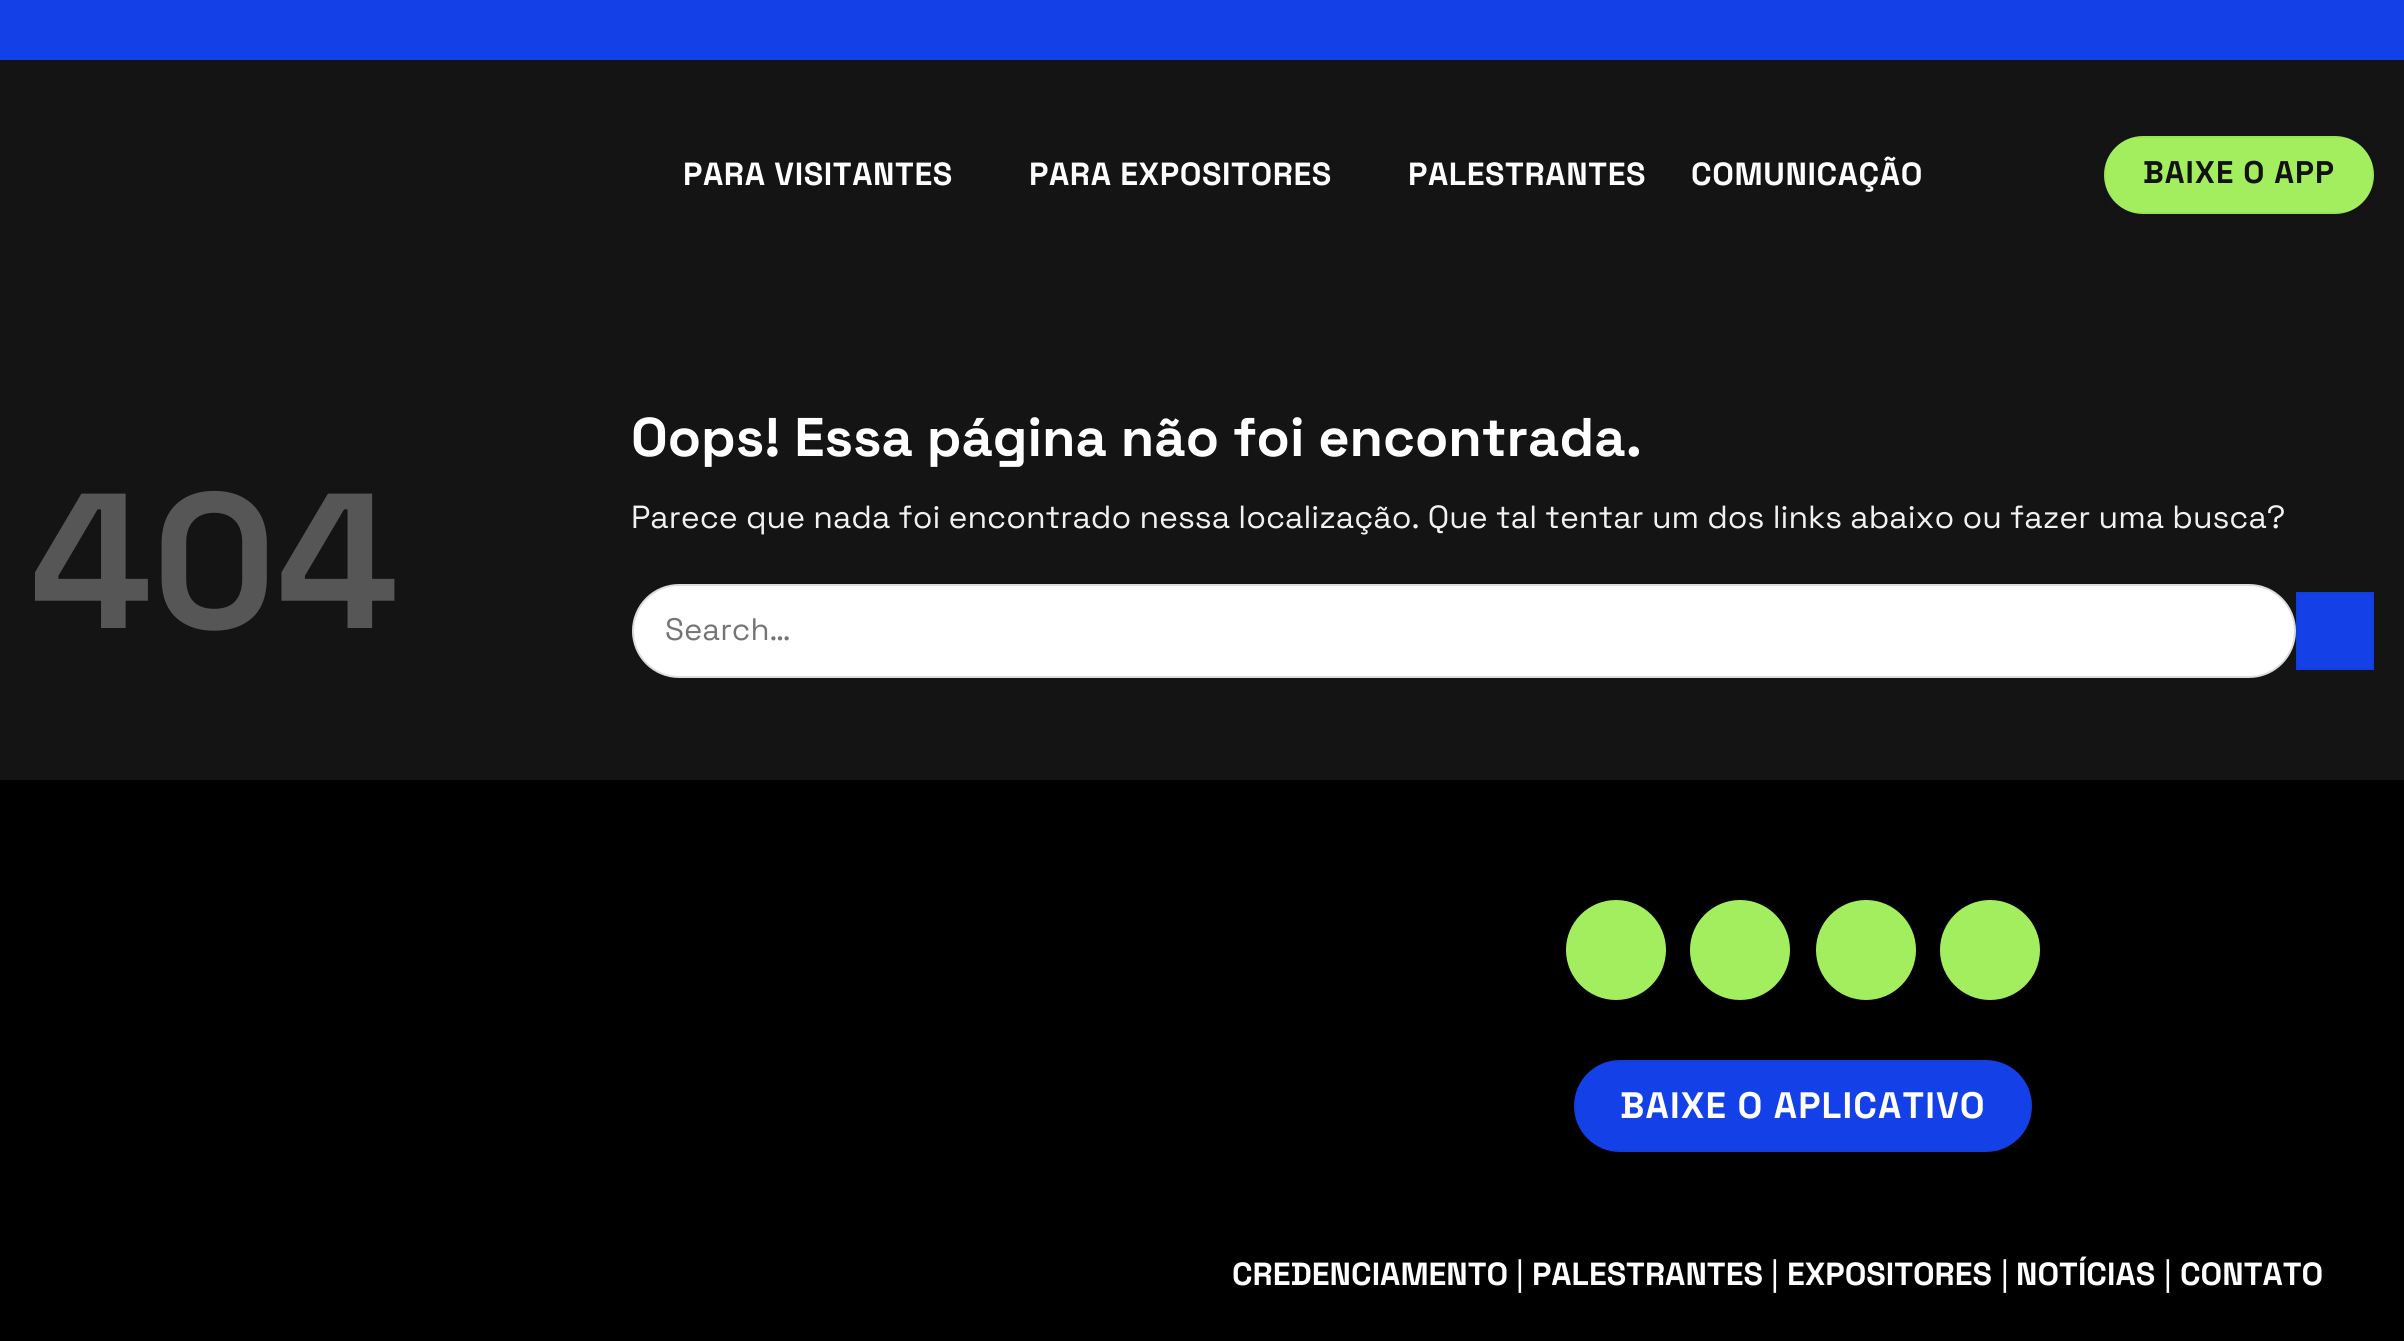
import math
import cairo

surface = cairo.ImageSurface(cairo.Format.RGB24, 2404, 1341)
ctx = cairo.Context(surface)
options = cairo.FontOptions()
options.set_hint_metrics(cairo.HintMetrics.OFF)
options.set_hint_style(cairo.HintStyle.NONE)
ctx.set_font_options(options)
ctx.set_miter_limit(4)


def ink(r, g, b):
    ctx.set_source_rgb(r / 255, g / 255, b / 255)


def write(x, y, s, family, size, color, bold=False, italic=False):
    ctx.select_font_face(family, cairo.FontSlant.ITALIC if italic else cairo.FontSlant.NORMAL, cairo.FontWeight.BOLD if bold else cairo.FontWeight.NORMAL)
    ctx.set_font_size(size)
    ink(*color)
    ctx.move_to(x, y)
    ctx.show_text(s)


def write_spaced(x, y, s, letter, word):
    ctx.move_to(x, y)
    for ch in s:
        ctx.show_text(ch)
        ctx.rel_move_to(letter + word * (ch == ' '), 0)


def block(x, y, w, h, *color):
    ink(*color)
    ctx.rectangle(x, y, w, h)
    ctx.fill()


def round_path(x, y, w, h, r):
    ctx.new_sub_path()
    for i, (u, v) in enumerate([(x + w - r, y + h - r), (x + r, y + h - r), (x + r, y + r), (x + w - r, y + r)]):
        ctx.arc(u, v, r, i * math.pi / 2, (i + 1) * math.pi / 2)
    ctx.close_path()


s1 = dict(family="Space Grotesk", size=192, color=(86, 86, 86), bold=True)
s2 = dict(family="Space Grotesk", size=54.4, color=(255, 255, 255), bold=True)
s3 = dict(family="Space Grotesk", size=32, color=(241, 241, 241))
s4 = dict(family="Space Grotesk", size=31, color=(117, 117, 117))
s5 = dict(family="Space Grotesk", size=32, color=(255, 255, 255), bold=True)
s6 = dict(family="Space Grotesk", size=32, color=(255, 255, 255))

ink(20, 20, 20)
ctx.paint()
block(0, 0, 2404, 60, 20, 64, 232)
ctx.select_font_face("Space Grotesk", cairo.FontSlant.NORMAL, cairo.FontWeight.BOLD)
ctx.set_font_size(32)
ink(255, 255, 255)
write_spaced(683, 185, "PARA VISITANTES", 0.6, 0)
write_spaced(1029, 185, "PARA EXPOSITORES", 0.6, 0)
write_spaced(1408, 185, "PALESTRANTES", 0.6, 0)
write_spaced(1691, 185, "COMUNICAÇÃO", 0.6, 0)
ink(163, 238, 94)
round_path(2104, 136, 270, 78, 39)
ctx.fill()
ctx.rectangle(2105, 137, 268, 76)
ctx.set_source_rgba(0, 0, 0, 0.05)
ctx.stroke()
ctx.set_font_size(31.25)
ink(18, 18, 18)
write_spaced(2143, 183, "BAIXE O APP", 1, 0)
write(30, 628, "404", **s1)
write(631, 456, "Oops! Essa página não foi encontrada.", **s2)
write(631, 528, "Parece que nada foi encontrado nessa localização. Que tal tentar um dos links abaixo ou fazer uma busca?", **s3)
ink(255, 255, 255)
round_path(633, 585, 1662, 92, 46)
ctx.fill_preserve()
ink(221, 221, 221)
ctx.stroke()
write(665, 640, "Search…", **s4)
ink(20, 64, 232)
ctx.rectangle(2297, 593, 76, 76)
ctx.fill_preserve()
ink(19, 61, 220)
ctx.stroke()
block(0, 780, 2404, 561, 0, 0, 0)
ink(163, 238, 94)
ctx.arc(1616, 950, 50, 0, 2 * math.pi)
ctx.fill()
ctx.arc(1740, 950, 50, 0, 2 * math.pi)
ctx.fill()
ctx.arc(1866, 950, 50, 0, 2 * math.pi)
ctx.fill()
ctx.arc(1990, 950, 50, 0, 2 * math.pi)
ctx.fill()
ink(20, 64, 232)
round_path(1574, 1060, 458, 92, 46)
ctx.fill()
ctx.rectangle(1575, 1061, 456, 90)
ctx.set_source_rgba(0, 0, 0, 0.05)
ctx.stroke()
ctx.select_font_face("Space Grotesk", cairo.FontSlant.NORMAL, cairo.FontWeight.BOLD)
ctx.set_font_size(36.75)
ink(255, 255, 255)
write_spaced(1620, 1118, "BAIXE O APLICATIVO", 1.1, 0)
write(1232, 1285, "CREDENCIAMENTO", **s5)
write(1516, 1285, "|", **s6)
write(1532, 1285, "PALESTRANTES", **s5)
write(1771, 1285, "|", **s6)
write(1787, 1285, "EXPOSITORES", **s5)
write(2001, 1285, "|", **s6)
write(2016, 1285, "NOTÍCIAS", **s5)
write(2164, 1285, "|", **s6)
write(2180, 1285, "CONTATO", **s5)
surface.write_to_png("screenshot.png")
